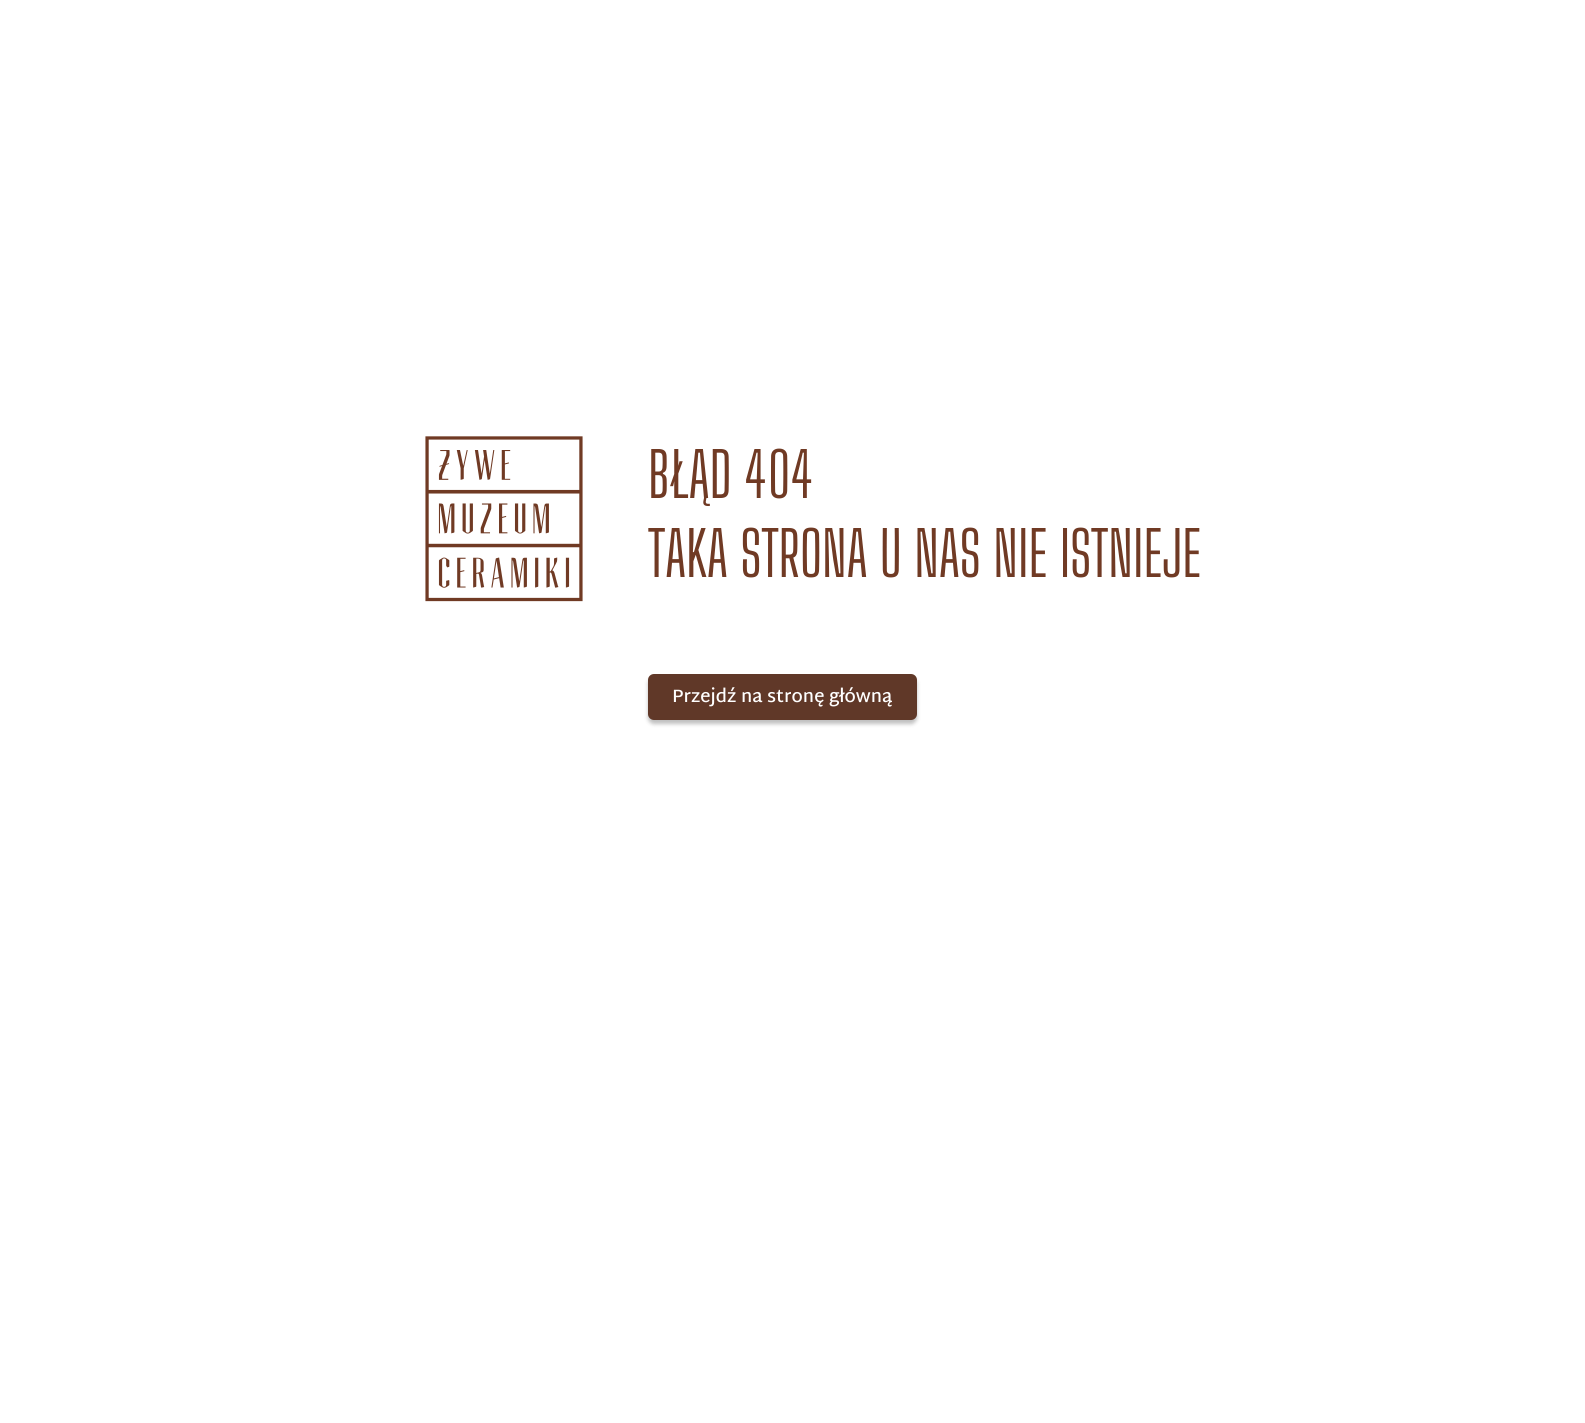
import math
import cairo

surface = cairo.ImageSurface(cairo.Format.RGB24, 1585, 1423)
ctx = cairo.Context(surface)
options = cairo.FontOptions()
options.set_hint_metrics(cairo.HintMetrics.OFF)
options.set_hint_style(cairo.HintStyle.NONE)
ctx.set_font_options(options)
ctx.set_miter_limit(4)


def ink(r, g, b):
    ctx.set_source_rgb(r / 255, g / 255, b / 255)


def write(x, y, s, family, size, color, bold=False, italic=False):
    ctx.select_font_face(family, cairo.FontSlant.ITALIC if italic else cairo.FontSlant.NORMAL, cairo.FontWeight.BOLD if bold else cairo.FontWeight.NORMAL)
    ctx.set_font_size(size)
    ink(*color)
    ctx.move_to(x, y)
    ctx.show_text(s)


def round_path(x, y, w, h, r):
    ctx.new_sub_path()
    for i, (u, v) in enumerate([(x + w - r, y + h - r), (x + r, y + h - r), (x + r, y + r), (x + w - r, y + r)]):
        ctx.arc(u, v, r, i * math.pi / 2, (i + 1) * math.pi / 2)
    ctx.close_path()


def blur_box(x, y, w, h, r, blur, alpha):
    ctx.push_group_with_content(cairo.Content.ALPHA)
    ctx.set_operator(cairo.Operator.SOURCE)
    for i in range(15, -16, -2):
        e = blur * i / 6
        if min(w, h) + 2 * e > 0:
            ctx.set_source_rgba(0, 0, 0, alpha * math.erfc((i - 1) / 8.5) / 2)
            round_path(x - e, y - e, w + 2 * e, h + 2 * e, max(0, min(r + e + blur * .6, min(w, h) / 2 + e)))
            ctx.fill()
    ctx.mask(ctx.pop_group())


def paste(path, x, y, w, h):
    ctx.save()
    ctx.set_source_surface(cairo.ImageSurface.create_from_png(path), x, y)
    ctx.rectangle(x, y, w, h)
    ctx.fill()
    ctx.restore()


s1 = dict(family="Big Shoulders Display", size=61.25, color=(112, 58, 36))
s2 = dict(family="Martel Sans SemiBold", size=18, color=(255, 255, 255))

ink(255, 255, 255)
ctx.paint()
paste("pic1.png", 425, 436, 158, 166)
write(648, 498, "BŁĄD 404", **s1)
write(648, 577, "TAKA STRONA U NAS NIE ISTNIEJE", **s1)
ink(0, 0, 0)
blur_box(648, 678, 269, 46, 6, 2, 0.25)
ink(96, 56, 40)
round_path(648, 674, 269, 46, 6)
ctx.fill()
write(672, 702, "Przejdź na stronę główną", **s2)
surface.write_to_png("screenshot.png")
